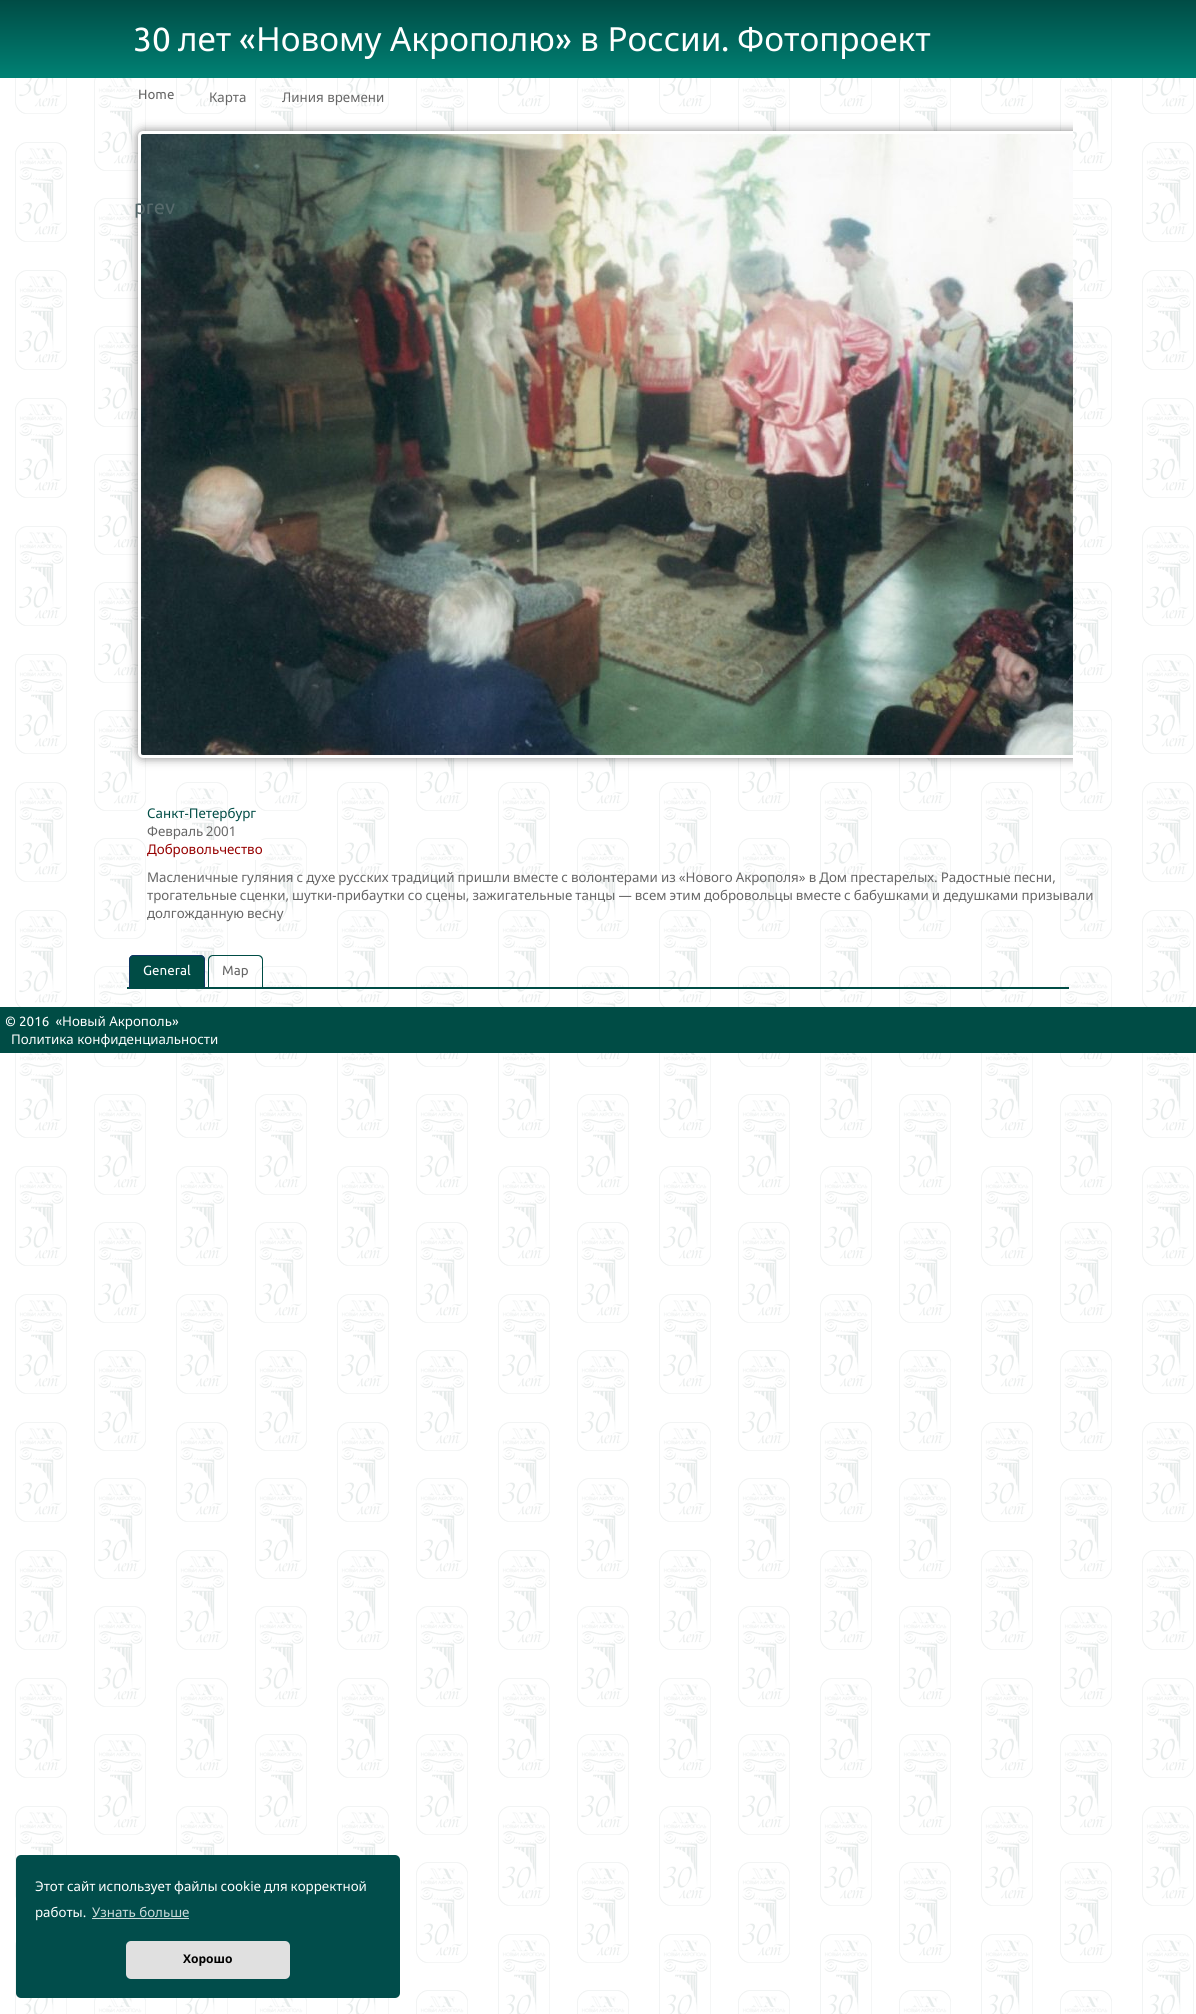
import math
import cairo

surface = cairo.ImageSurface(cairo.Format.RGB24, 1196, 2014)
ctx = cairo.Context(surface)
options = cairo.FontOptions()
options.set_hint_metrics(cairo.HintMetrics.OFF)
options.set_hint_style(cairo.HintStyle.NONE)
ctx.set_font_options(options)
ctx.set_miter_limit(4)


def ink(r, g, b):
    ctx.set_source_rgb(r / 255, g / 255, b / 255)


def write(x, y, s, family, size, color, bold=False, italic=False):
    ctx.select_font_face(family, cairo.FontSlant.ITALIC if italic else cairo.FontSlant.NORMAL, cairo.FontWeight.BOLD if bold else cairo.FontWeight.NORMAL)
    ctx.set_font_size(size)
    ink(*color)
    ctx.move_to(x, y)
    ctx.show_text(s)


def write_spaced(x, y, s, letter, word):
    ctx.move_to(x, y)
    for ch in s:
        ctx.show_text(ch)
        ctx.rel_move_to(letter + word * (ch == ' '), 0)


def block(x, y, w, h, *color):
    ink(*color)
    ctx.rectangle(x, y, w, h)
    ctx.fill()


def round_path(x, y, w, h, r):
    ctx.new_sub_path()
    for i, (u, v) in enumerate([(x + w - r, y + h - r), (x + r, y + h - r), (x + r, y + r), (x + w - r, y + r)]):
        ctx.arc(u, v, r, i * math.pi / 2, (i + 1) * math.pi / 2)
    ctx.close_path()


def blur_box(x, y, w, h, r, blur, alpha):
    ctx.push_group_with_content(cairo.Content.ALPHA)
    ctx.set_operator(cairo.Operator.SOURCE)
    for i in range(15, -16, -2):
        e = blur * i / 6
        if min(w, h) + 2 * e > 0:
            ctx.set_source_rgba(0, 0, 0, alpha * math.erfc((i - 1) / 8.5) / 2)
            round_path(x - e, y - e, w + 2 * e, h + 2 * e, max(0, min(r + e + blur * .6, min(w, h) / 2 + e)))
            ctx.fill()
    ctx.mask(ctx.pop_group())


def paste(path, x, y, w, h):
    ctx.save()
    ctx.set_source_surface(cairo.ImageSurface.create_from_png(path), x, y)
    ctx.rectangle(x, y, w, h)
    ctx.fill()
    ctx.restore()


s1 = dict(family="Ubuntu", size=33.25, color=(255, 255, 255))
s2 = dict(family="Noto Sans", size=33.25, color=(255, 255, 255))
s3 = dict(family="Ubuntu", size=13.33, color=(102, 102, 102))
s4 = dict(family="Noto Sans", size=13.33, color=(102, 102, 102))
s5 = dict(family="Ubuntu", size=20, color=(86, 105, 107))
s6 = dict(family="Noto Sans", size=13.33, color=(0, 76, 69))
s7 = dict(family="Noto Sans", size=13.33, color=(150, 0, 0))
s8 = dict(family="Ubuntu", size=13.33, color=(255, 255, 255))
s9 = dict(family="Noto Sans", size=13.33, color=(255, 255, 255))
s10 = dict(family="Noto Sans", size=13.33, color=(204, 219, 219))
s11 = dict(family="Noto Sans", size=12, color=(0, 0, 0), bold=True)

ink(255, 255, 255)
ctx.paint()
paste("pic1.png", 15, 78, 1179, 1936)
gradient = cairo.LinearGradient(0, 0, 0, 76)
gradient.add_color_stop_rgba(0, 0, 0.298, 0.271, 1)
gradient.add_color_stop_rgba(1, 0, 0.502, 0.451, 1)
ctx.set_source(gradient)
ctx.rectangle(0, 0, 1196, 76)
ctx.fill()
block(0, 76, 1196, 2, 0, 128, 115)
write(133, 51, "30", **s1)
write(178, 51, "лет", **s2)
write(239, 51, "«", **s1)
write(256, 51, "Новому Акрополю", **s2)
write(555, 51, "»", **s1)
write(580, 51, "в России", **s2)
write(737, 51, "Фотопроект", **s2)
write(721, 51, ".", **s1)
write(138, 99, "Home", **s3)
write(209, 102, "Карта", **s4)
write(282, 102, "Линия времени", **s4)
ctx.save()
ctx.rectangle(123, 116, 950, 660)
ctx.clip()
ink(0, 0, 0)
blur_box(138, 131, 966, 627, 5, 5, 0.5)
ctx.restore()
ctx.save()
ctx.rectangle(123, 116, 950, 660)
ctx.clip()
round_path(139.5, 132.5, 963, 624, 3.5)
ink(255, 255, 255)
ctx.set_line_width(3)
ctx.stroke()
ctx.restore()
paste("pic2.png", 141, 134, 932, 621)
write(134, 214, "prev", **s5)
write(147, 818, "Санкт-Петербург", **s6)
ink(102, 102, 102)
write_spaced(147, 836, "Февраль 2001", 0, -1)
block(176, 840, 89, 20, 255, 255, 255)
write(147, 854, "Добровольчество", **s7)
ink(102, 102, 102)
write_spaced(147, 882, "Масленичные гуляния с духе русских традиций пришли вместе с волонтерами из «Нового Акрополя» в Дом престарелых. Радостные песни,", 0, -0.4)
write_spaced(147, 900, "трогательные сценки, шутки-прибаутки со сцены, зажигательные танцы — всем этим добровольцы вместе с бабушками и дедушками призывали", 0, -0.4)
write_spaced(147, 918, "долгожданную весну", 0, -0.4)
block(127, 987, 942, 2, 0, 76, 69)
ctx.new_path()
ctx.move_to(134, 955)
ctx.line_to(200, 955)
ctx.curve_to(203, 955, 205, 957, 205, 960)
ctx.line_to(205, 988)
ctx.line_to(129, 988)
ctx.line_to(129, 960)
ctx.curve_to(129, 957, 131, 955, 134, 955)
ctx.close_path()
ctx.fill()
ink(16, 53, 101)
ctx.set_fill_rule(cairo.FillRule.EVEN_ODD)
ctx.new_path()
ctx.move_to(134, 955)
ctx.line_to(200, 955)
ctx.curve_to(203, 955, 205, 957, 205, 960)
ctx.line_to(205, 988)
ctx.line_to(129, 988)
ctx.line_to(129, 960)
ctx.curve_to(129, 957, 131, 955, 134, 955)
ctx.close_path()
ctx.move_to(134, 956)
ctx.line_to(200, 956)
ctx.curve_to(202, 956, 204, 958, 204, 960)
ctx.line_to(204, 988)
ctx.line_to(130, 988)
ctx.line_to(130, 960)
ctx.curve_to(130, 958, 132, 956, 134, 956)
ctx.close_path()
ctx.fill()
write(143, 975, "General", **s8)
ink(0, 76, 69)
ctx.new_path()
ctx.move_to(213, 955)
ctx.line_to(258, 955)
ctx.curve_to(261, 955, 263, 957, 263, 960)
ctx.line_to(263, 987)
ctx.line_to(208, 987)
ctx.line_to(208, 960)
ctx.curve_to(208, 957, 210, 955, 213, 955)
ctx.close_path()
ctx.move_to(213, 956)
ctx.line_to(258, 956)
ctx.curve_to(260, 956, 262, 958, 262, 960)
ctx.line_to(262, 987)
ctx.line_to(209, 987)
ctx.line_to(209, 960)
ctx.curve_to(209, 958, 211, 956, 213, 956)
ctx.close_path()
ctx.fill()
write(222, 975, "Map", **s3)
block(0, 1007, 1196, 46, 0, 76, 69)
write(5, 1026, "© 2016  «", **s8)
write(62, 1026, "Новый Акрополь", **s9)
write(172, 1026, "»", **s8)
write(11, 1044, "Политика конфиденциальности", **s9)
ink(1, 77, 75)
round_path(16, 1855, 384, 143, 5)
ctx.fill()
ink(255, 255, 255)
write_spaced(35, 1891, "Этот сайт использует файлы cookie для корректной", 0, -0.5)
write(35, 1917, "работы.", **s9)
write(92, 1917, "Узнать больше", **s10)
block(92, 1918, 97, 1, 204, 219, 219)
ink(224, 224, 224)
round_path(126, 1941, 164, 38, 5)
ctx.fill()
write(183, 1963, "Хорошо", **s11)
surface.write_to_png("screenshot.png")
